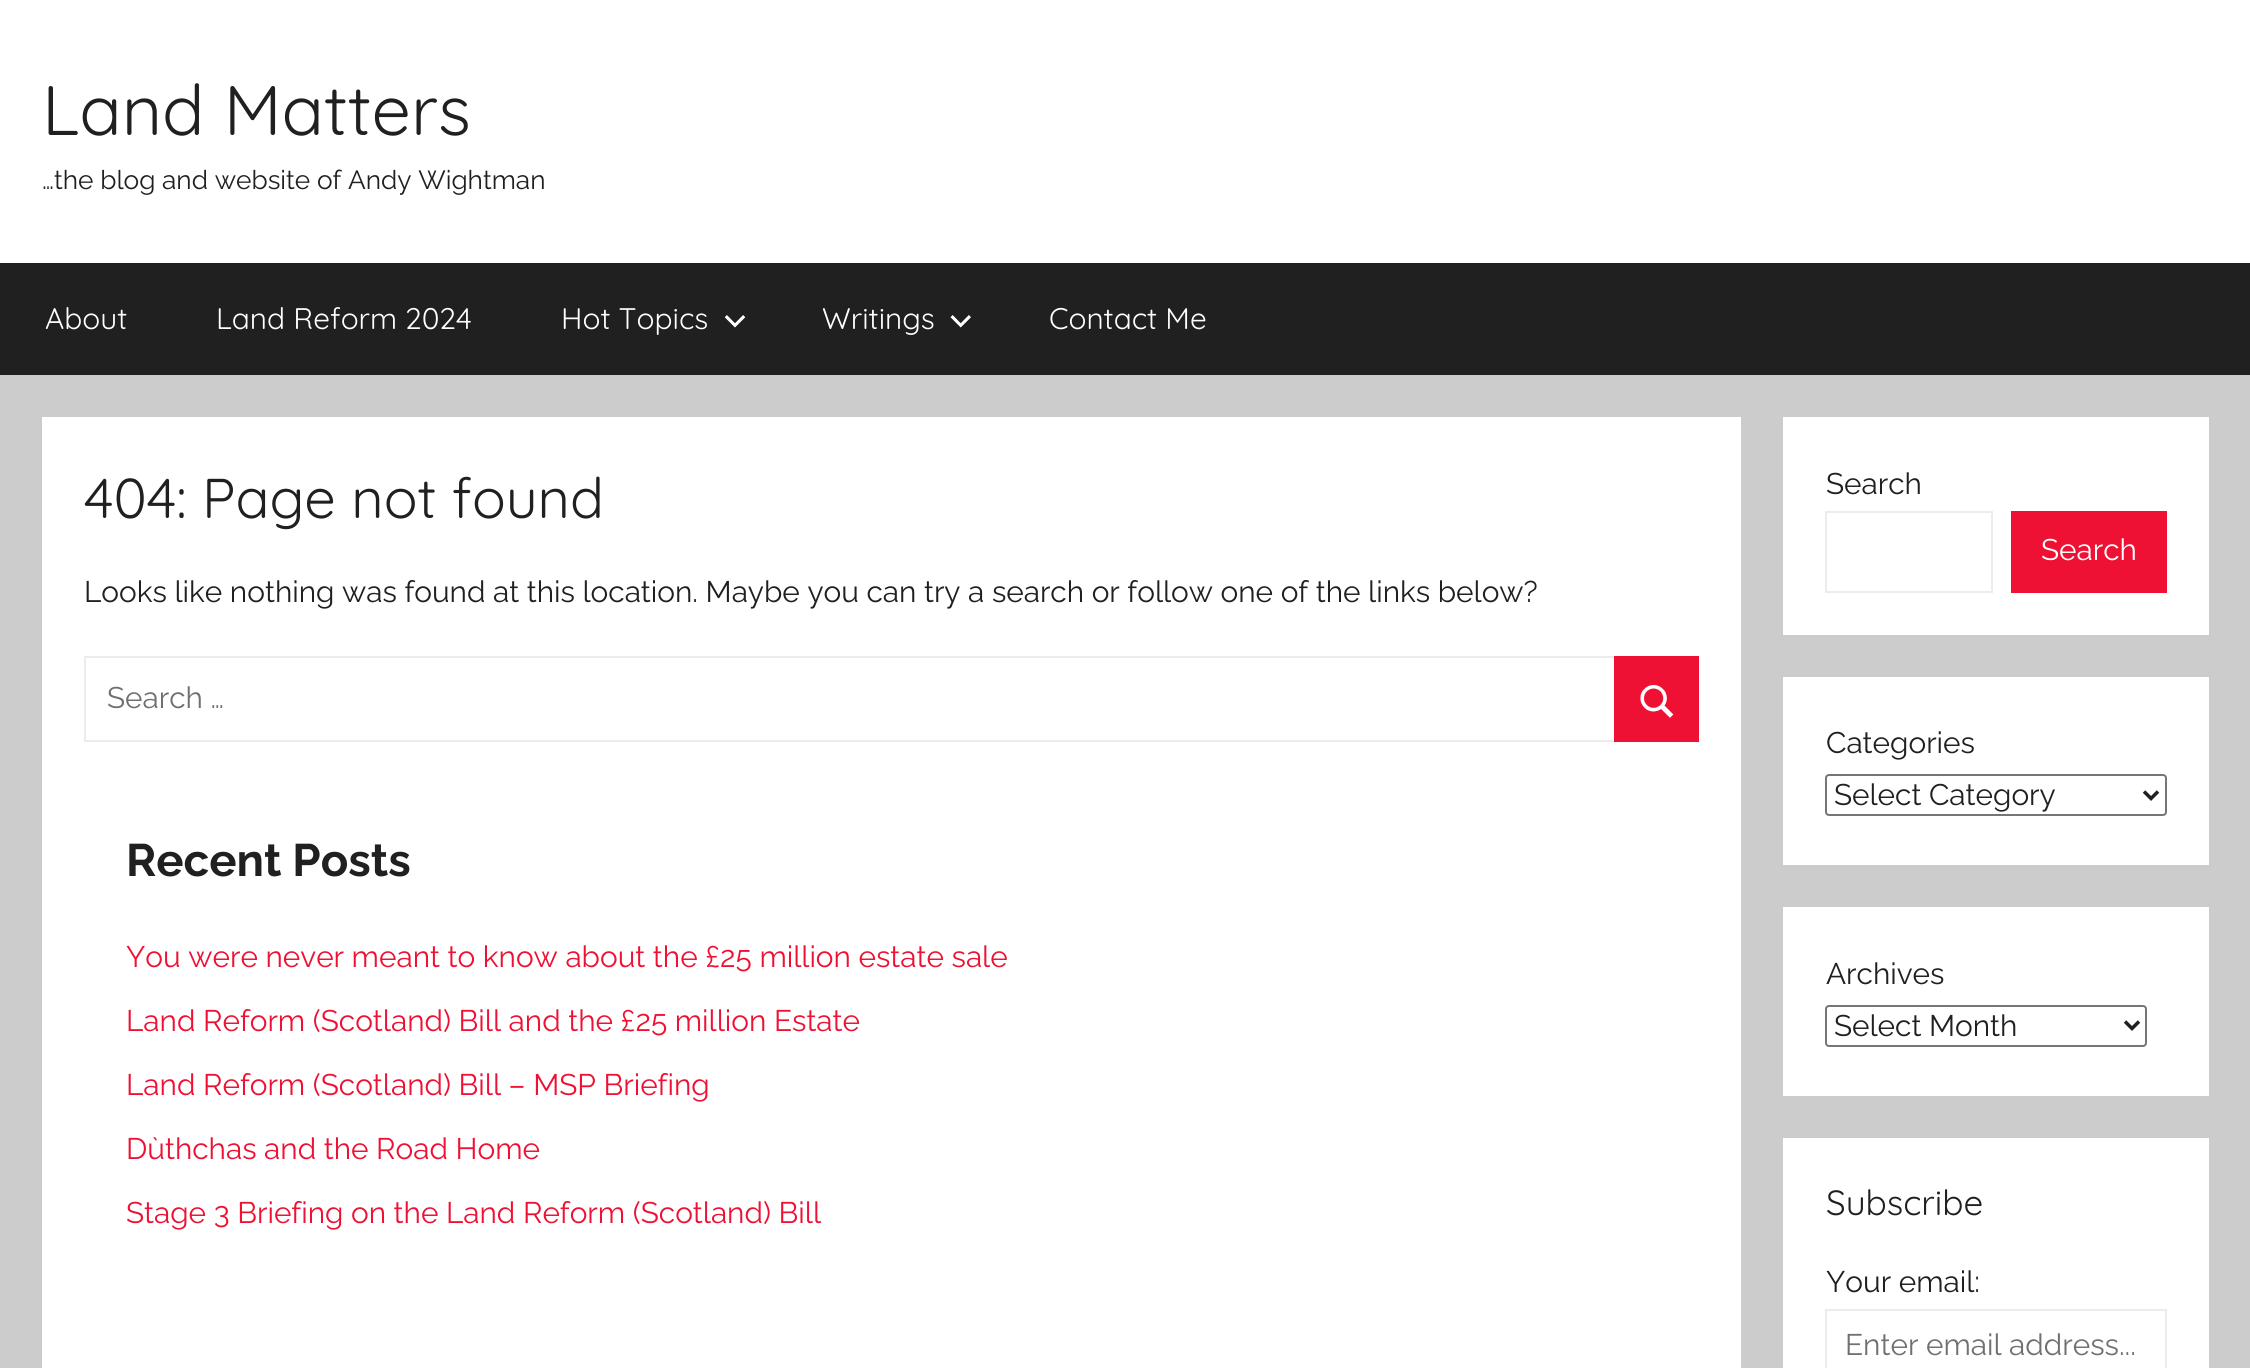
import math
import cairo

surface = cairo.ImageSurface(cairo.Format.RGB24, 2250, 1368)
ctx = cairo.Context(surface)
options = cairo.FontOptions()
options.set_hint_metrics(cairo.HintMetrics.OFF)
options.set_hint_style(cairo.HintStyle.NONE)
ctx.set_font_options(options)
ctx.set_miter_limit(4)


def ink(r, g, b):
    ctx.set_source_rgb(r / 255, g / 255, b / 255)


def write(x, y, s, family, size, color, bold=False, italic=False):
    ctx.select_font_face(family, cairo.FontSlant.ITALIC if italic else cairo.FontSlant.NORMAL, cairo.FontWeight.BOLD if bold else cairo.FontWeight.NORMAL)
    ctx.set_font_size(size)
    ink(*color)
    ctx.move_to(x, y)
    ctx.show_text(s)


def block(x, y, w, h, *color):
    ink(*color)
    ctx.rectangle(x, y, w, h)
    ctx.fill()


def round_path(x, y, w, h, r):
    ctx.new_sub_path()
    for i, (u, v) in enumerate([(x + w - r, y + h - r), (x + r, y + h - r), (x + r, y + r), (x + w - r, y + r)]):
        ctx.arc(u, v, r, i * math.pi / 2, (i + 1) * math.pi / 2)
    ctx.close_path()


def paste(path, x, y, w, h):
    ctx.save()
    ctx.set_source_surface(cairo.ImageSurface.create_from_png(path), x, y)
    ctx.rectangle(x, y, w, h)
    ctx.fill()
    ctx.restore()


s1 = dict(family="Quicksand", size=70, color=(32, 32, 32))
s2 = dict(family="Raleway", size=26.25, color=(32, 32, 32))
s3 = dict(family="Quicksand", size=29.75, color=(255, 255, 255))
s4 = dict(family="Quicksand", size=56, color=(32, 32, 32))
s5 = dict(family="Raleway", size=29.75, color=(32, 32, 32))
s6 = dict(family="Raleway", size=29.75, color=(112, 112, 112))
s7 = dict(family="Raleway", size=45.5, color=(32, 32, 32), bold=True)
s8 = dict(family="Raleway", size=29.75, color=(238, 17, 51))
s9 = dict(family="Raleway", size=29.75, color=(255, 255, 255))
s10 = dict(family="Quicksand", size=35, color=(32, 32, 32))

ink(204, 204, 204)
ctx.paint()
block(0, 0, 2250, 263, 255, 255, 255)
write(42, 135, "Land Matters", **s1)
write(42, 189, "…the blog and website of Andy Wightman", **s2)
block(0, 263, 2250, 112, 32, 32, 32)
write(45, 329, "About", **s3)
write(216, 329, "Land Reform 2024", **s3)
write(561, 329, "Hot Topics", **s3)
paste("pic1.png", 724, 315, 22, 13)
write(822, 329, "Writings", **s3)
paste("pic2.png", 950, 315, 21, 13)
write(1049, 329, "Contact Me", **s3)
block(42, 417, 1699, 951, 255, 255, 255)
write(84, 518, "404: Page not found", **s4)
write(84, 602, "Looks like nothing was found at this location. Maybe you can try a search or follow one of the links below?", **s5)
ctx.rectangle(85, 657, 1613, 84)
ink(236, 236, 236)
ctx.stroke()
write(107, 708, "Search …", **s6)
block(1614, 656, 85, 86, 238, 17, 51)
paste("pic3.png", 1640, 685, 34, 33)
write(126, 876, "Recent Posts", **s7)
write(126, 967, "You were never meant to know about the £25 million estate sale", **s8)
write(126, 1031, "Land Reform (Scotland) Bill and the £25 million Estate", **s8)
write(126, 1095, "Land Reform (Scotland) Bill – MSP Briefing", **s8)
write(126, 1159, "Dùthchas and the Road Home", **s8)
write(126, 1223, "Stage 3 Briefing on the Land Reform (Scotland) Bill", **s8)
block(1783, 417, 426, 218, 255, 255, 255)
write(1826, 494, "Search", **s5)
ctx.rectangle(1826, 512, 166, 80)
ink(236, 236, 236)
ctx.stroke()
block(2011, 511, 156, 82, 238, 17, 51)
write(2041, 560, "Search", **s9)
block(1783, 677, 426, 188, 255, 255, 255)
write(1826, 753, "Categories", **s5)
round_path(1826, 775, 340, 40, 3)
ink(118, 118, 118)
ctx.stroke()
ctx.new_path()
ctx.move_to(2144, 791.5)
ctx.line_to(2151, 798.5)
ctx.line_to(2158, 791.5)
ink(32, 32, 32)
ctx.set_line_width(3.5)
ctx.stroke()
write(1834, 805, "Select Category", **s5)
block(1783, 907, 426, 189, 255, 255, 255)
write(1826, 984, "Archives", **s5)
round_path(1826, 1006, 320, 40, 3)
ink(118, 118, 118)
ctx.set_line_width(2)
ctx.stroke()
ctx.new_path()
ctx.move_to(2125, 1021.5)
ctx.line_to(2132, 1028.5)
ctx.line_to(2139, 1021.5)
ink(32, 32, 32)
ctx.set_line_width(3.5)
ctx.stroke()
write(1834, 1036, "Select Month", **s5)
block(1783, 1138, 426, 230, 255, 255, 255)
write(1826, 1215, "Subscribe", **s10)
write(1826, 1292, "Your email:", **s5)
ctx.rectangle(1826, 1310, 340, 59)
ink(236, 236, 236)
ctx.set_line_width(2)
ctx.stroke()
write(1845, 1355, "Enter email address...", **s6)
surface.write_to_png("screenshot.png")
